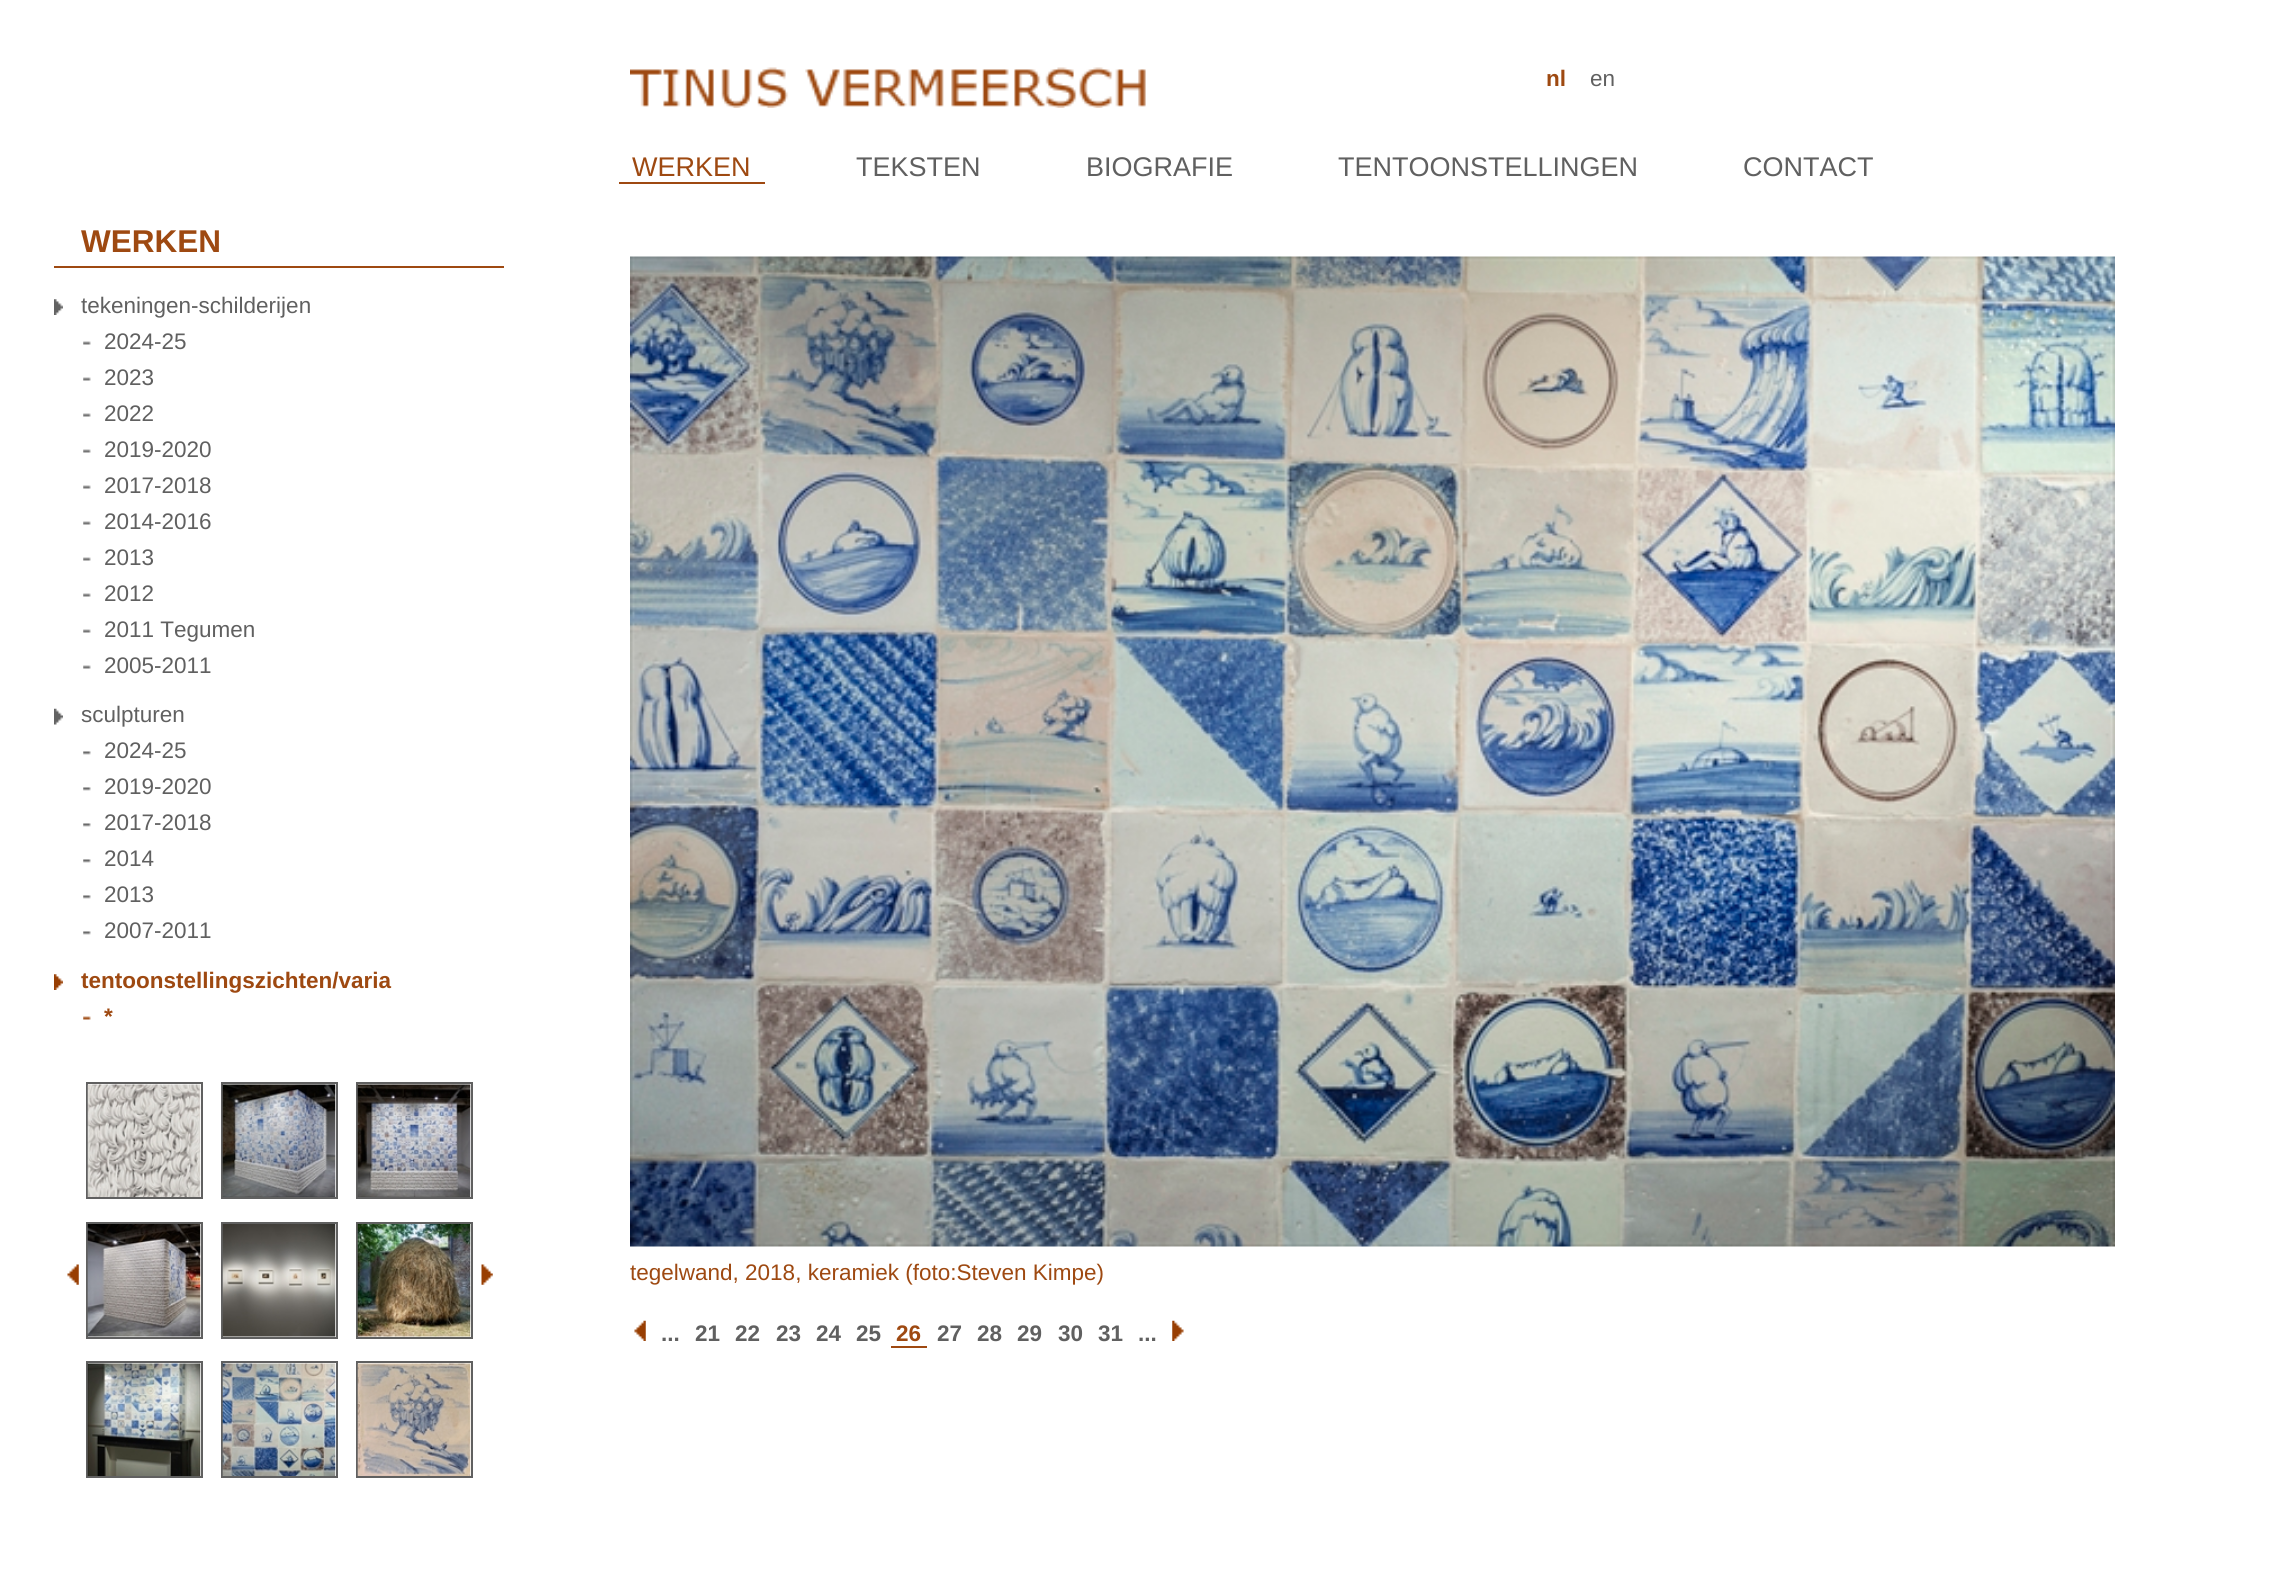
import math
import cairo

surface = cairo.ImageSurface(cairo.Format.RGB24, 2288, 1594)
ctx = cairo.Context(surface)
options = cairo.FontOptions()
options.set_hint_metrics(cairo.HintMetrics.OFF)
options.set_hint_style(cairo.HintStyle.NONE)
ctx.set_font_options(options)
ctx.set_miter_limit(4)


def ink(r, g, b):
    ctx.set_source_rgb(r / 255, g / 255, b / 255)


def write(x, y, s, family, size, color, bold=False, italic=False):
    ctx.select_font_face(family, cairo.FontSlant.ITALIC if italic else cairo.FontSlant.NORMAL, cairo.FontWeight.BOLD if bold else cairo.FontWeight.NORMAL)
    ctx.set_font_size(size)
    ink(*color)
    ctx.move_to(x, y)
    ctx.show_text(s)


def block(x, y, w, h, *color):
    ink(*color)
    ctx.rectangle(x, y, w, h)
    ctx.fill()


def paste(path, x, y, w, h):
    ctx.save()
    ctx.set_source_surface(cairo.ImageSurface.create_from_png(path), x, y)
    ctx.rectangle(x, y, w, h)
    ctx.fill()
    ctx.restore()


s1 = dict(family="Liberation Sans", size=22.5, color=(158, 73, 17), bold=True)
s2 = dict(family="Liberation Sans", size=22.5, color=(96, 96, 96))
s3 = dict(family="Liberation Sans", size=27, color=(158, 73, 17))
s4 = dict(family="Liberation Sans", size=27, color=(96, 96, 96))
s5 = dict(family="Liberation Sans", size=31.5, color=(158, 73, 17), bold=True)
s6 = dict(family="Liberation Sans", size=22.5, color=(158, 73, 17))
s7 = dict(family="Liberation Sans", size=22.5, color=(96, 96, 96), bold=True)

ink(255, 255, 255)
ctx.paint()
write(1546, 86, "nl", **s1)
write(1590, 86, "en", **s2)
paste("pic1.png", 630, 67, 516, 41)
write(632, 176, "WERKEN", **s3)
block(619, 182, 146, 2, 158, 73, 17)
write(856, 176, "TEKSTEN", **s4)
write(1086, 176, "BIOGRAFIE", **s4)
write(1338, 176, "TENTOONSTELLINGEN", **s4)
write(1743, 176, "CONTACT", **s4)
block(54, 266, 450, 2, 158, 73, 17)
write(81, 252, "WERKEN", **s5)
paste("pic2.png", 54, 299, 9, 16)
write(81, 313, "tekeningen-schilderijen", **s2)
paste("pic3.png", 83, 341, 8, 4)
write(104, 349, "2024-25", **s2)
paste("pic3.png", 83, 377, 8, 4)
write(104, 385, "2023", **s2)
paste("pic3.png", 83, 413, 8, 4)
write(104, 421, "2022", **s2)
paste("pic3.png", 83, 449, 8, 4)
write(104, 457, "2019-2020", **s2)
paste("pic3.png", 83, 485, 8, 4)
write(104, 493, "2017-2018", **s2)
paste("pic3.png", 83, 521, 8, 4)
write(104, 529, "2014-2016", **s2)
paste("pic3.png", 83, 557, 8, 4)
write(104, 565, "2013", **s2)
paste("pic3.png", 83, 593, 8, 4)
write(104, 601, "2012", **s2)
paste("pic3.png", 83, 629, 8, 4)
write(104, 637, "2011 Tegumen", **s2)
paste("pic3.png", 83, 665, 8, 4)
write(104, 673, "2005-2011", **s2)
paste("pic4.png", 54, 708, 9, 17)
write(81, 722, "sculpturen", **s2)
paste("pic5.png", 83, 751, 8, 4)
write(104, 758, "2024-25", **s2)
paste("pic5.png", 83, 787, 8, 4)
write(104, 794, "2019-2020", **s2)
paste("pic5.png", 83, 823, 8, 4)
write(104, 830, "2017-2018", **s2)
paste("pic5.png", 83, 859, 8, 4)
write(104, 866, "2014", **s2)
paste("pic5.png", 83, 895, 8, 4)
write(104, 902, "2013", **s2)
paste("pic5.png", 83, 931, 8, 4)
write(104, 938, "2007-2011", **s2)
paste("pic6.png", 54, 974, 9, 16)
write(81, 988, "tentoonstellingszichten/varia", **s1)
paste("pic7.png", 83, 1016, 8, 4)
write(104, 1024, "*", **s1)
paste("pic8.png", 67, 1264, 12, 21)
ctx.rectangle(87, 1083, 115, 115)
ink(96, 96, 96)
ctx.stroke()
ctx.rectangle(222, 1083, 115, 115)
ctx.stroke()
ctx.rectangle(357, 1083, 115, 115)
ctx.stroke()
paste("pic9.png", 87, 1084, 114, 113)
paste("pic10.png", 222, 1084, 114, 113)
paste("pic11.png", 357, 1084, 114, 113)
ctx.rectangle(87, 1223, 115, 115)
ctx.stroke()
ctx.rectangle(222, 1223, 115, 115)
ctx.stroke()
ctx.rectangle(357, 1223, 115, 115)
ctx.stroke()
paste("pic12.png", 87, 1224, 114, 113)
paste("pic13.png", 222, 1224, 114, 113)
paste("pic14.png", 357, 1224, 114, 113)
ctx.rectangle(87, 1362, 115, 115)
ctx.stroke()
ctx.rectangle(222, 1362, 115, 115)
ctx.stroke()
ctx.rectangle(357, 1362, 115, 115)
ctx.stroke()
paste("pic15.png", 87, 1363, 114, 113)
paste("pic16.png", 222, 1363, 114, 113)
paste("pic17.png", 357, 1363, 114, 113)
paste("pic18.png", 481, 1264, 12, 21)
paste("pic19.png", 630, 256, 1485, 991)
write(630, 1280, "tegelwand, 2018, keramiek (foto:Steven Kimpe)", **s6)
paste("pic20.png", 634, 1320, 12, 21)
write(661, 1341, "...", **s7)
write(695, 1341, "21", **s7)
write(735, 1341, "22", **s7)
write(776, 1341, "23", **s7)
write(816, 1341, "24", **s7)
write(856, 1341, "25", **s7)
write(896, 1341, "26", **s1)
block(891, 1346, 36, 2, 158, 73, 17)
write(937, 1341, "27", **s7)
write(977, 1341, "28", **s7)
write(1017, 1341, "29", **s7)
write(1058, 1341, "30", **s7)
write(1098, 1341, "31", **s7)
write(1138, 1341, "...", **s7)
paste("pic21.png", 1172, 1320, 12, 21)
surface.write_to_png("screenshot.png")
